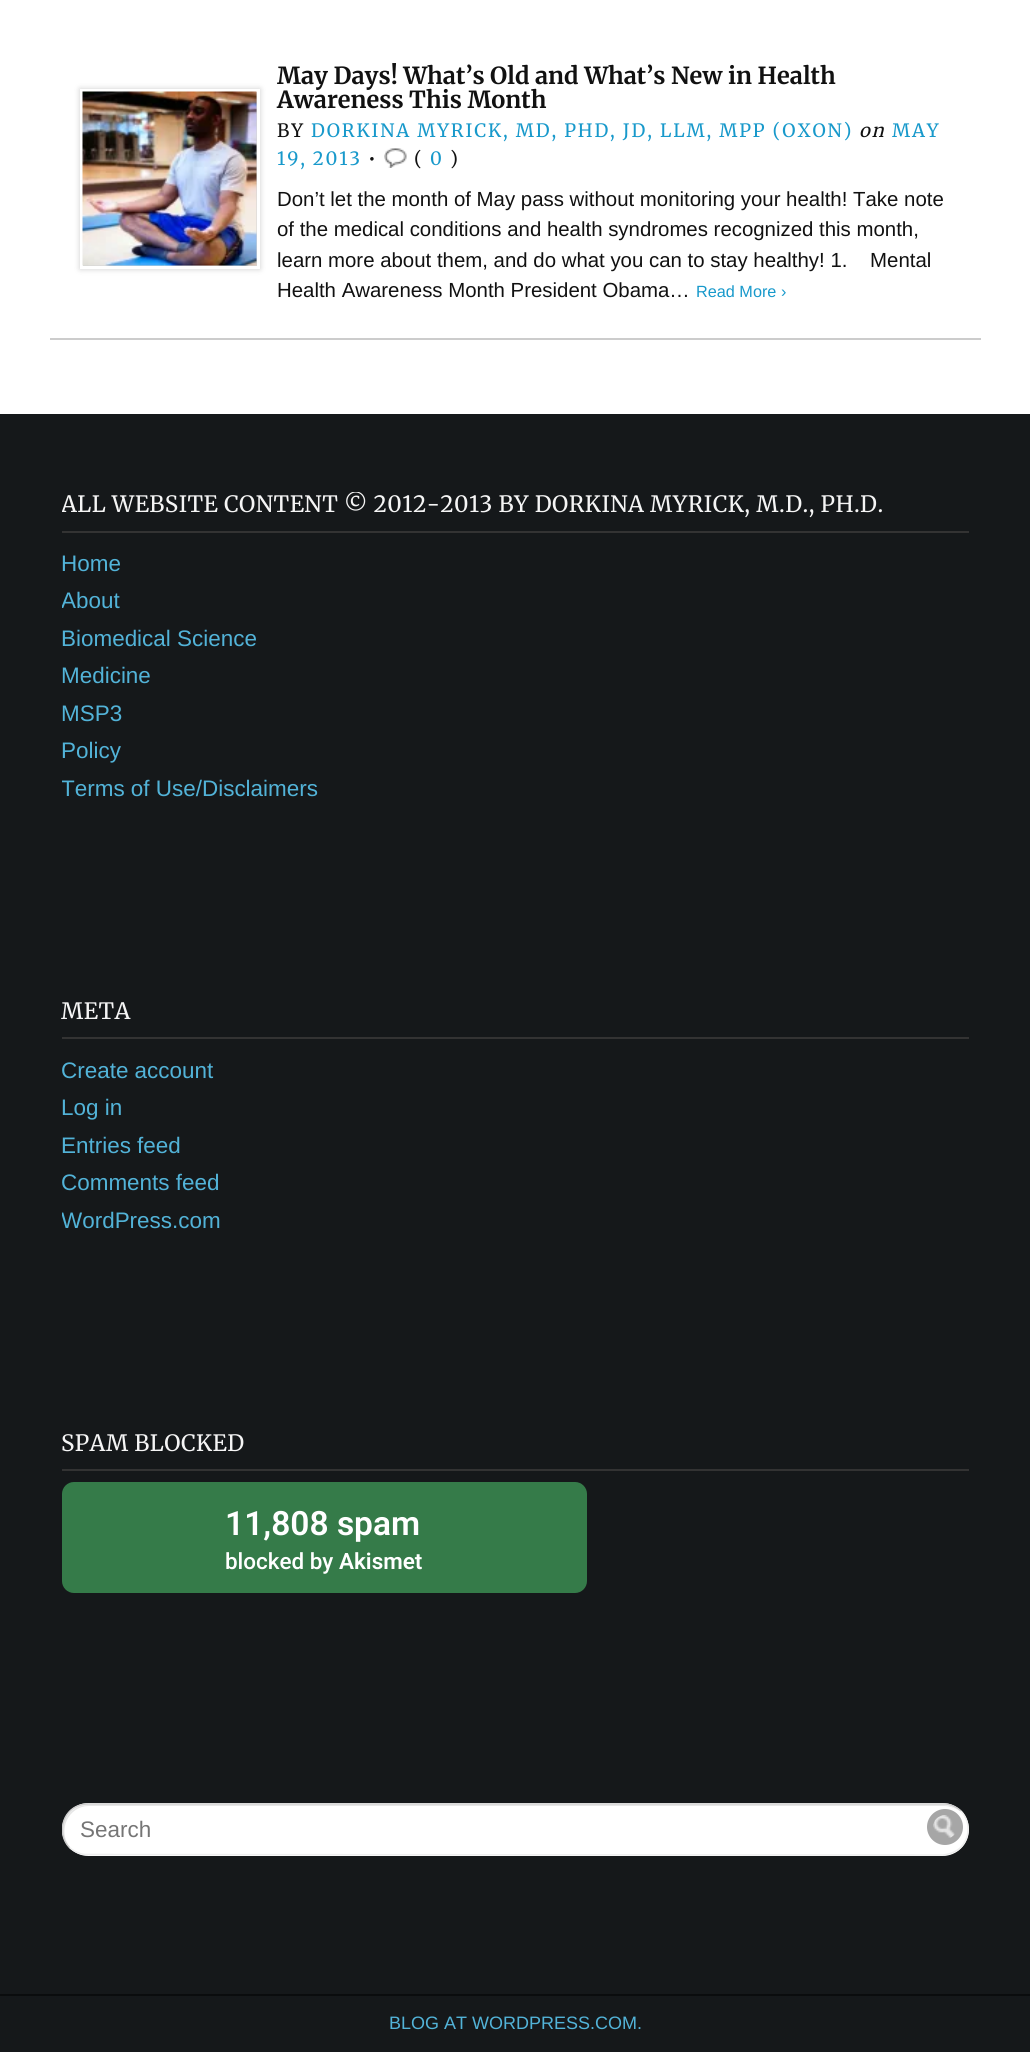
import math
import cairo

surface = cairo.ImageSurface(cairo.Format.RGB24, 1030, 2052)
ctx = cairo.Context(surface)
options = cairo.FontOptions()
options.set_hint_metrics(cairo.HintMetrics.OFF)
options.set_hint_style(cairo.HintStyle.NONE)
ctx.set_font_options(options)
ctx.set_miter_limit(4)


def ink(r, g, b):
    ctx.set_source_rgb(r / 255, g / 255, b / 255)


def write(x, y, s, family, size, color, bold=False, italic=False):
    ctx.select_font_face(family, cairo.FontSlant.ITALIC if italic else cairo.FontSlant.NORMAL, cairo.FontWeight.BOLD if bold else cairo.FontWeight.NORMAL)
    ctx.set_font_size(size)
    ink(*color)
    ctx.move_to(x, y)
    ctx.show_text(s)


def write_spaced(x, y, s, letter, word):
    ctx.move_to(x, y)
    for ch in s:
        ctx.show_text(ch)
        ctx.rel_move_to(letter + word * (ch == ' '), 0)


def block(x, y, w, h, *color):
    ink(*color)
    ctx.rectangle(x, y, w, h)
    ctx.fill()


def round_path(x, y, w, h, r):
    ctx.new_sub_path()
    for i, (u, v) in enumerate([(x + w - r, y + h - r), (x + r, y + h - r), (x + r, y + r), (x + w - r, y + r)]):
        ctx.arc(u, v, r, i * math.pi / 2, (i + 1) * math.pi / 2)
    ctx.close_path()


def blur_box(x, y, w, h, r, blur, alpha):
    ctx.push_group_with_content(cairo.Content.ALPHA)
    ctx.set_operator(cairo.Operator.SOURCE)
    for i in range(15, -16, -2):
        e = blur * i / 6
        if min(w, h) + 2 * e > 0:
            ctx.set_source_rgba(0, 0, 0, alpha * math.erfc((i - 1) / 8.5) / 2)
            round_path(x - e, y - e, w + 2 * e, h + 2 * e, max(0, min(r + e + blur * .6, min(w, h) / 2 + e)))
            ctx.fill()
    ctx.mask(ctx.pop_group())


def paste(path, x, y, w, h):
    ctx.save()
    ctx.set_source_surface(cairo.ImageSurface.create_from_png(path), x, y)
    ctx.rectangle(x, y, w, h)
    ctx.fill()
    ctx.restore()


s1 = dict(family="Merriweather", size=23.5, color=(17, 17, 17), bold=True)
s2 = dict(family="Liberation Sans", size=20.4, color=(17, 17, 17))
s3 = dict(family="Liberation Sans", size=16.25, color=(24, 153, 203))
s4 = dict(family="Liberation Sans", size=22.45, color=(82, 179, 216))
s5 = dict(family="Roboto SemiBold", size=33.5, color=(255, 255, 255))
s6 = dict(family="Roboto Medium", size=22.45, color=(255, 255, 255))
s7 = dict(family="Roboto SemiBold", size=22.45, color=(255, 255, 255))
s8 = dict(family="Liberation Sans", size=22.45, color=(117, 117, 117))
s9 = dict(family="Liberation Sans", size=18, color=(82, 179, 216))

ink(255, 255, 255)
ctx.paint()
block(50, 338, 931, 2, 204, 204, 204)
ink(0, 0, 0)
blur_box(80, 89, 180, 180, 0, 3, 0.2)
ctx.rectangle(81.5, 90.5, 177, 177)
ink(255, 255, 255)
ctx.set_line_width(3)
ctx.stroke()
paste("pic1.png", 82, 91, 175, 175)
write(277, 84, "May Days! What’s Old and What’s New in Health", **s1)
write(277, 108, "Awareness This Month", **s1)
ctx.select_font_face("Merriweather")
ctx.set_font_size(18.35)
write_spaced(277, 137, "BY", 1.85, 0)
ink(24, 153, 203)
write_spaced(311, 137, "DORKINA MYRICK, MD, PHD, JD, LLM, MPP (OXON)", 1.85, 0)
ctx.select_font_face("Merriweather", cairo.FontSlant.ITALIC)
ink(17, 17, 17)
write_spaced(859, 137, "on", 1.85, 0)
ctx.select_font_face("Merriweather")
ink(24, 153, 203)
write_spaced(892, 137, "MAY", 1.85, 0)
write_spaced(277, 165, "19, 2013", 1.85, 0)
ink(17, 17, 17)
write_spaced(368, 165, "•", 1.85, 0)
paste("pic2.png", 384, 148, 23, 20)
write_spaced(414, 165, "(", 1.85, 0)
ink(24, 153, 203)
write_spaced(430, 165, "0", 1.85, 0)
ink(17, 17, 17)
write_spaced(450, 165, ")", 1.85, 0)
write(277, 206, "Don’t let the month of May pass without monitoring your health! Take note", **s2)
write(277, 236, "of the medical conditions and health syndromes recognized this month,", **s2)
write(277, 267, "learn more about them, and do what you can to stay healthy! 1.    Mental", **s2)
write(277, 297, "Health Awareness Month President Obama…", **s2)
write(696, 297, "Read More ›", **s3)
block(0, 414, 1030, 1638, 21, 24, 26)
block(62, 531, 907, 2, 51, 51, 51)
ctx.save()
ctx.rectangle(62, 492, 907, 315)
ctx.clip()
ctx.select_font_face("Merriweather")
ctx.set_font_size(22.45)
ink(245, 245, 245)
write_spaced(61, 512, "ALL WEBSITE CONTENT © 2012-2013 BY DORKINA MYRICK, M.D., PH.D.", 0.45, 0)
ctx.restore()
write(61, 571, "Home", **s4)
ctx.save()
ctx.rectangle(62, 492, 907, 315)
ctx.clip()
write(61, 608, "About", **s4)
ctx.restore()
write(61, 646, "Biomedical Science", **s4)
write(61, 683, "Medicine", **s4)
write(61, 721, "MSP3", **s4)
write(61, 758, "Policy", **s4)
ctx.save()
ctx.rectangle(62, 492, 907, 315)
ctx.clip()
write(61, 796, "Terms of Use/Disclaimers", **s4)
ctx.restore()
block(62, 1037, 907, 2, 51, 51, 51)
ctx.select_font_face("Merriweather")
ink(245, 245, 245)
write_spaced(61, 1019, "META", 0.45, 0)
write(61, 1078, "Create account", **s4)
write(61, 1115, "Log in", **s4)
write(61, 1153, "Entries feed", **s4)
write(61, 1190, "Comments feed", **s4)
ctx.save()
ctx.rectangle(62, 999, 907, 239)
ctx.clip()
write(61, 1228, "WordPress.com", **s4)
ctx.restore()
block(62, 1469, 907, 2, 51, 51, 51)
ctx.select_font_face("Merriweather")
ink(245, 245, 245)
write_spaced(61, 1451, "SPAM BLOCKED", 0.45, 0)
ink(53, 123, 73)
round_path(62, 1482, 525, 111, 12)
ctx.fill()
write(225, 1535, "11,808 spam", **s5)
write(225, 1569, "blocked by", **s6)
write(339, 1569, "Akismet", **s7)
round_path(62, 1803, 907, 53, 26.5)
ctx.fill()
ink(230, 230, 230)
ctx.new_path()
ctx.move_to(89, 1806)
ctx.line_to(944, 1806)
ctx.curve_to(951, 1806, 958, 1809, 963, 1814)
ctx.curve_to(958, 1809, 951, 1805, 944, 1805)
ctx.line_to(88, 1805)
ctx.curve_to(74, 1805, 63, 1816, 63, 1830)
ctx.curve_to(63, 1836, 66, 1842, 70, 1847)
ctx.curve_to(57, 1831, 68, 1806, 89, 1806)
ctx.close_path()
ctx.fill()
ctx.new_path()
ctx.move_to(961, 1811)
ctx.curve_to(972.5, 1823, 969.5, 1844, 955, 1851.5)
ctx.curve_to(951, 1853.5, 947, 1854.5, 943, 1855)
ctx.line_to(85, 1854.5)
ctx.curve_to(79.5, 1854, 74, 1851.5, 69.5, 1847.5)
ink(238, 238, 238)
ctx.set_line_width(1.5)
ctx.stroke()
ctx.save()
ctx.rectangle(62, 1785, 907, 71)
ctx.clip()
ctx.new_path()
ctx.move_to(69.5, 1847.5)
ctx.curve_to(58, 1835.5, 61, 1814.5, 75.5, 1807)
ctx.curve_to(79.5, 1805, 83.5, 1804, 88, 1804)
ctx.line_to(945.5, 1804)
ctx.curve_to(951, 1804.5, 956.5, 1807, 961, 1811)
ink(204, 204, 204)
ctx.stroke()
ctx.restore()
write(80, 1837, "Search", **s8)
ink(166, 166, 166)
ctx.new_path()
ctx.arc(945, 1827, 18, 0, 2 * math.pi)
ctx.fill()
paste("pic3.png", 933, 1815, 22, 23)
block(0, 1994, 1030, 2, 10, 12, 13)
write(389, 2029, "BLOG AT WORDPRESS.COM.", **s9)
surface.write_to_png("screenshot.png")
